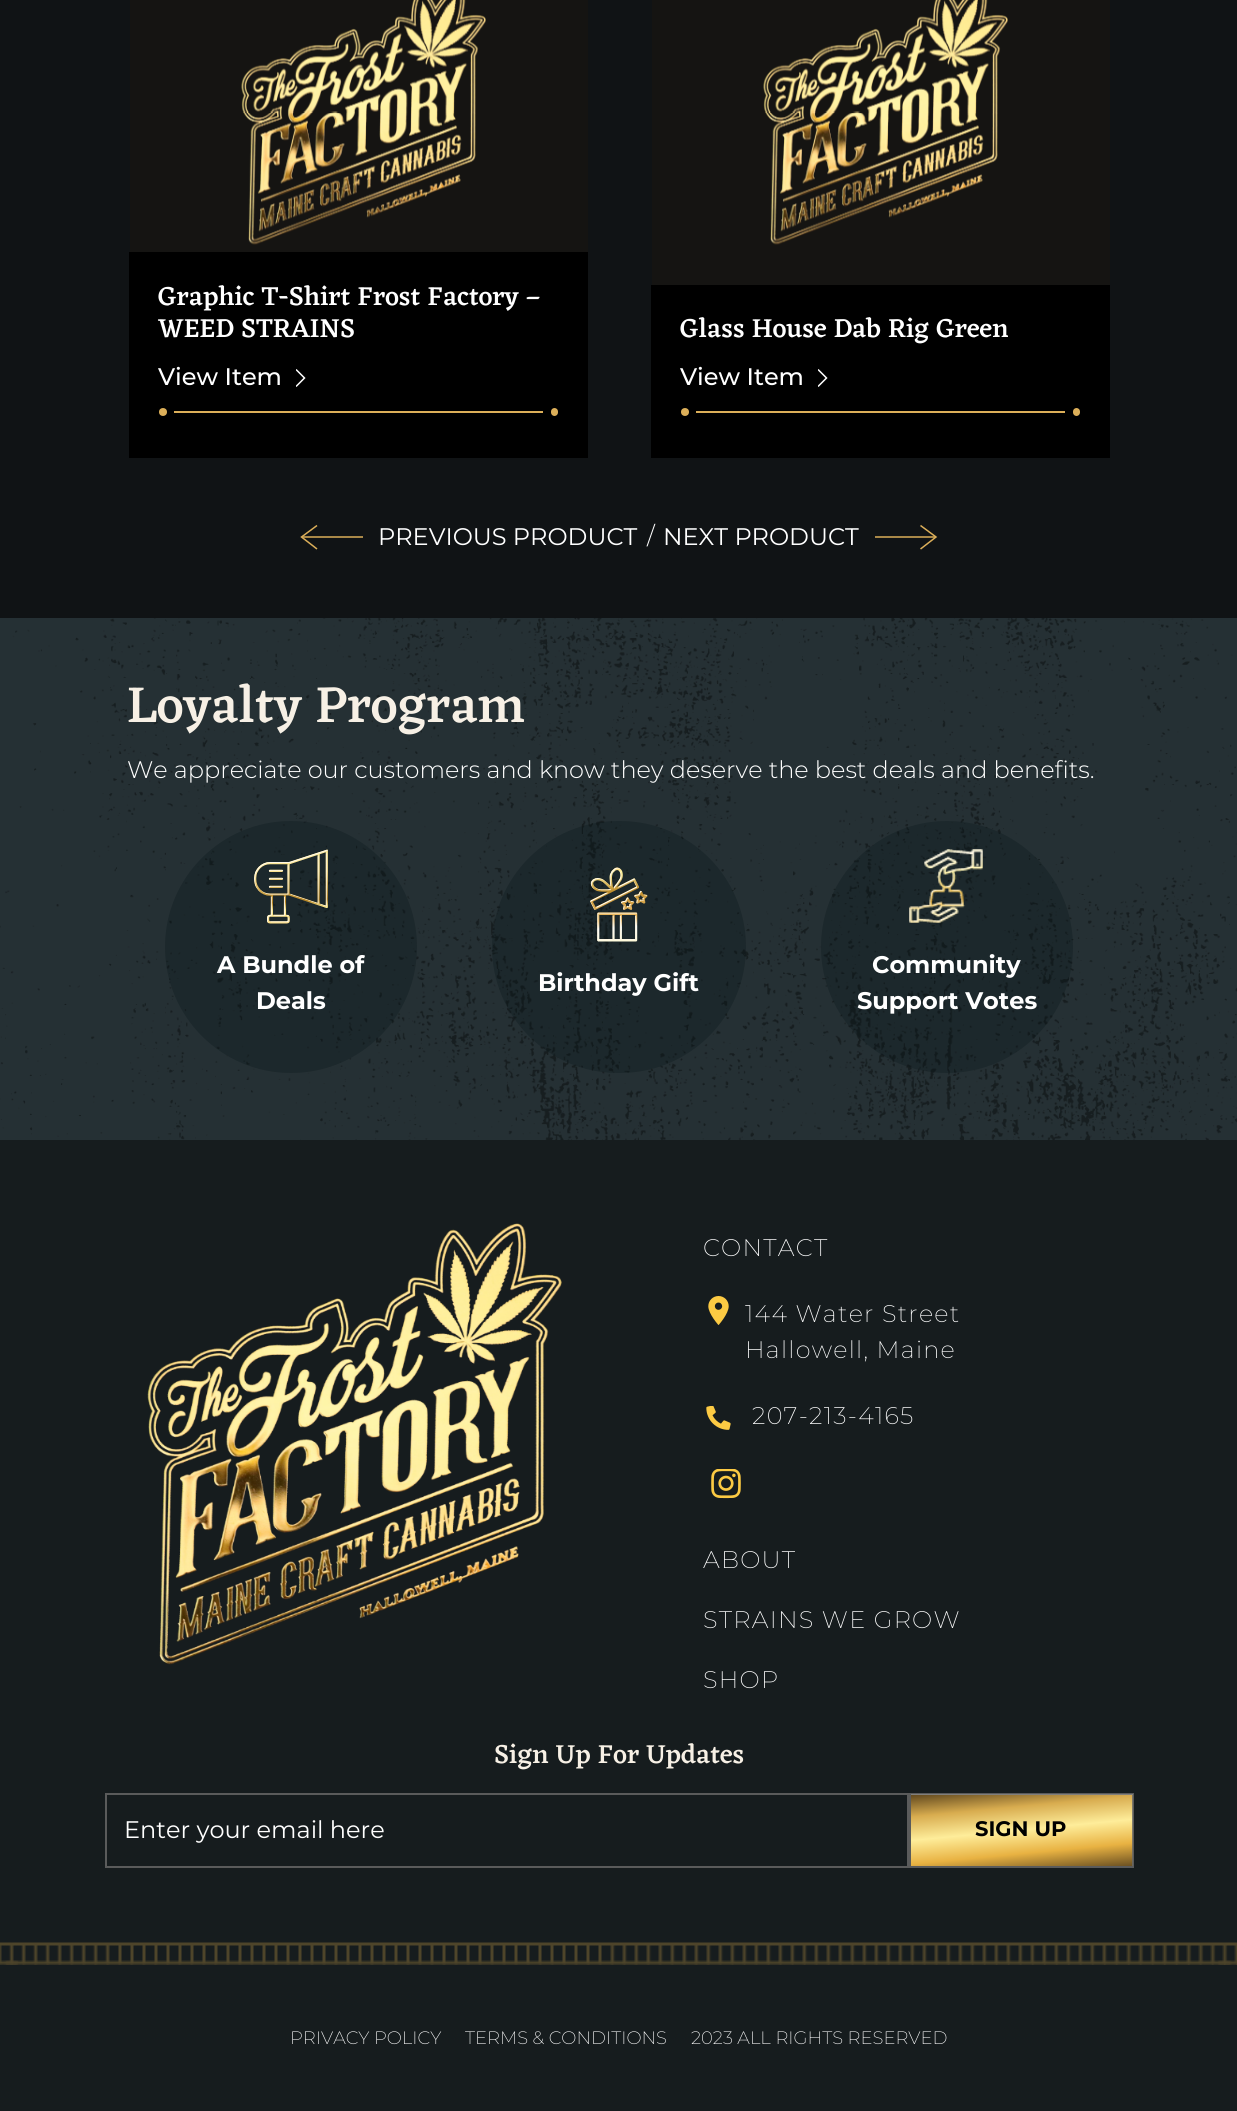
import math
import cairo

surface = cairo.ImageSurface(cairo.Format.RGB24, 1237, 2111)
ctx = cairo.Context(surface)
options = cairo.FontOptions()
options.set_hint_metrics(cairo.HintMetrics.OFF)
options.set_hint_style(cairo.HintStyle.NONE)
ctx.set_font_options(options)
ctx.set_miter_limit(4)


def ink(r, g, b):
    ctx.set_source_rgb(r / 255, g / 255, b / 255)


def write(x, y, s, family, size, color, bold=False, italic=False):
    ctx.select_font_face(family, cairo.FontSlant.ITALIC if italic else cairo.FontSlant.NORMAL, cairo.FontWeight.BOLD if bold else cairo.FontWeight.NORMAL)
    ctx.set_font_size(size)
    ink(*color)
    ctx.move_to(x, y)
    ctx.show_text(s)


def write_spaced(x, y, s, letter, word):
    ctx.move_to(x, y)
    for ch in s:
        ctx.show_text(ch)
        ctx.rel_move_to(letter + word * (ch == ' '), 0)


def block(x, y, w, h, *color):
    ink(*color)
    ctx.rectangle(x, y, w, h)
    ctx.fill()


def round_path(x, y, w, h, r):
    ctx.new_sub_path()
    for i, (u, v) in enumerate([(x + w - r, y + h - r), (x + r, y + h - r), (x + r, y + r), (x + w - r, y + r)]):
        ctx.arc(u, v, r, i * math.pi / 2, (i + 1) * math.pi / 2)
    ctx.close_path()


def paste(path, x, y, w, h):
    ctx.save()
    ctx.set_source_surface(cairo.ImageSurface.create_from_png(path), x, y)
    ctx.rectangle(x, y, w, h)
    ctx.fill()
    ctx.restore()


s1 = dict(family="Eczar Medium", size=27, color=(255, 255, 255))
s2 = dict(family="Montserrat Medium", size=24, color=(255, 255, 255))
s3 = dict(family="Montserrat", size=24, color=(255, 255, 255))
s4 = dict(family="Montserrat Light", size=24, color=(255, 255, 255))
s5 = dict(family="Eczar Medium", size=52.5, color=(247, 240, 229))
s6 = dict(family="Montserrat", size=24, color=(255, 255, 255), bold=True)
s7 = dict(family="Eczar Medium", size=27, color=(247, 240, 229))
s8 = dict(family="Montserrat", size=21, color=(0, 0, 0), bold=True)
s9 = dict(family="Montserrat ExtraLight", size=18, color=(255, 255, 255))

ink(24, 30, 33)
ctx.paint()
block(0, 0, 1237, 618, 16, 19, 21)
block(130, 0, 458, 252, 21, 20, 18)
paste("pic1.png", 241, 0, 245, 245)
block(129, 252, 459, 206, 0, 0, 0)
write(158, 305, "Graphic T-Shirt Frost Factory –", **s1)
write(158, 337, "WEED STRAINS", **s1)
write(158, 385, "View Item", **s2)
ctx.save()
ctx.rectangle(296, 369, 10, 18)
ctx.clip()
ctx.new_path()
ctx.move_to(296, 369.5)
ctx.line_to(304.5, 378)
ctx.line_to(296, 386.5)
ctx.set_line_width(1.5)
ctx.stroke()
ctx.restore()
block(174, 411, 369, 2, 220, 175, 89)
ctx.arc(163, 412, 4, 0, 2 * math.pi)
ctx.fill()
round_path(551, 408, 7, 8, 3.5)
ctx.fill()
block(652, 0, 458, 285, 21, 20, 18)
paste("pic1.png", 763, 0, 245, 245)
block(651, 285, 459, 173, 0, 0, 0)
write(680, 337, "Glass House Dab Rig Green", **s1)
write(680, 385, "View Item", **s2)
ctx.save()
ctx.rectangle(818, 369, 10, 18)
ctx.clip()
ctx.new_path()
ctx.move_to(818, 369.5)
ctx.line_to(826.5, 378)
ctx.line_to(818, 386.5)
ctx.set_line_width(1.5)
ctx.stroke()
ctx.restore()
block(696, 411, 369, 2, 220, 175, 89)
ctx.arc(685, 412, 4, 0, 2 * math.pi)
ctx.fill()
round_path(1073, 408, 7, 8, 3.5)
ctx.fill()
block(302, 536, 61, 2, 169, 136, 72)
ctx.new_path()
ctx.move_to(317, 525.5)
ctx.line_to(301.5, 537)
ctx.line_to(317, 549)
ink(220, 175, 89)
ctx.set_line_width(1.5)
ctx.stroke()
write(378, 545, "PREVIOUS PRODUCT", **s3)
write(647, 544, "/", **s4)
write(663, 545, "NEXT PRODUCT", **s3)
block(875, 536, 61, 2, 169, 136, 72)
ctx.new_path()
ctx.move_to(920.5, 525.5)
ctx.line_to(936, 537)
ctx.line_to(920.5, 549)
ink(220, 175, 89)
ctx.stroke()
paste("pic2.png", 0, 618, 1237, 522)
write(127, 722, "Loyalty Program", **s5)
write(127, 778, "We appreciate our customers and know they deserve the best deals and benefits.", **s4)
ctx.set_source_rgba(0.039, 0.082, 0.098, 0.3)
ctx.new_path()
ctx.arc(291, 947, 126, 0, 2 * math.pi)
ctx.fill()
paste("pic3.png", 254, 849, 74, 75)
write(217, 973, "A Bundle of", **s6)
write(256, 1009, "Deals", **s6)
ctx.set_source_rgba(0.039, 0.082, 0.098, 0.3)
round_path(492, 821, 254, 252, 126)
ctx.fill()
paste("pic4.png", 590, 867, 58, 75)
write(538, 991, "Birthday Gift", **s6)
ctx.set_source_rgba(0.039, 0.082, 0.098, 0.3)
ctx.new_path()
ctx.arc(947, 947, 126, 0, 2 * math.pi)
ctx.fill()
paste("pic5.png", 909, 849, 74, 74)
write(872, 973, "Community", **s6)
write(857, 1009, "Support Votes", **s6)
block(0, 1140, 1237, 971, 22, 28, 30)
paste("pic6.png", 147, 1223, 415, 442)
ctx.select_font_face("Montserrat ExtraLight")
ink(255, 255, 255)
write_spaced(703, 1256, "CONTACT", 1.25, 0)
paste("pic7.png", 708, 1296, 21, 29)
write_spaced(745, 1322, "144 Water Street", 1.25, 0)
write_spaced(745, 1358, "Hallowell, Maine", 1.25, 0)
paste("pic8.png", 706, 1406, 25, 24)
write_spaced(752, 1424, "207-213-4165", 1.25, 0)
paste("pic9.png", 711, 1469, 30, 30)
write_spaced(703, 1568, "ABOUT", 1.25, 0)
write_spaced(703, 1628, "STRAINS WE GROW", 1.25, 0)
write_spaced(703, 1688, "SHOP", 1.25, 0)
write(494, 1763, "Sign Up For Updates", **s7)
ctx.rectangle(106, 1794, 802, 73)
ink(90, 91, 91)
ctx.set_line_width(2)
ctx.stroke()
write(124, 1838, "Enter your email here", **s3)
gradient = cairo.LinearGradient(1017, 1783, 1026, 1877)
gradient.add_color_stop_rgba(0, 0.345, 0.255, 0.106, 1)
gradient.add_color_stop_rgba(0.25, 0.847, 0.675, 0.31, 1)
gradient.add_color_stop_rgba(0.5, 0.996, 0.929, 0.604, 1)
gradient.add_color_stop_rgba(0.75, 0.91, 0.698, 0.259, 1)
gradient.add_color_stop_rgba(1, 0.404, 0.302, 0.129, 1)
ctx.set_source(gradient)
ctx.rectangle(911, 1795, 222, 71)
ctx.fill()
ctx.save()
ctx.rectangle(911, 1794, 222, 72)
ctx.clip()
ink(253, 246, 227)
ctx.set_fill_rule(cairo.FillRule.EVEN_ODD)
ctx.new_path()
ctx.move_to(762, 1646)
ctx.line_to(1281, 1646)
ctx.line_to(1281, 2014)
ctx.line_to(762, 2014)
ctx.close_path()
ctx.move_to(911, 1795)
ctx.line_to(1133, 1795)
ctx.line_to(1133, 1867)
ctx.line_to(911, 1867)
ctx.close_path()
ctx.fill()
ctx.restore()
ctx.rectangle(910, 1794, 223, 73)
ctx.set_source_rgba(0.408, 0.408, 0.408, 0.83)
ctx.stroke()
write(975, 1836, "SIGN UP", **s8)
paste("pic10.png", 0, 1942, 1237, 23)
write(290, 2044, "PRIVACY POLICY", **s9)
write(465, 2044, "TERMS & CONDITIONS", **s9)
write(691, 2044, "2023 ALL RIGHTS RESERVED", **s9)
surface.write_to_png("screenshot.png")
